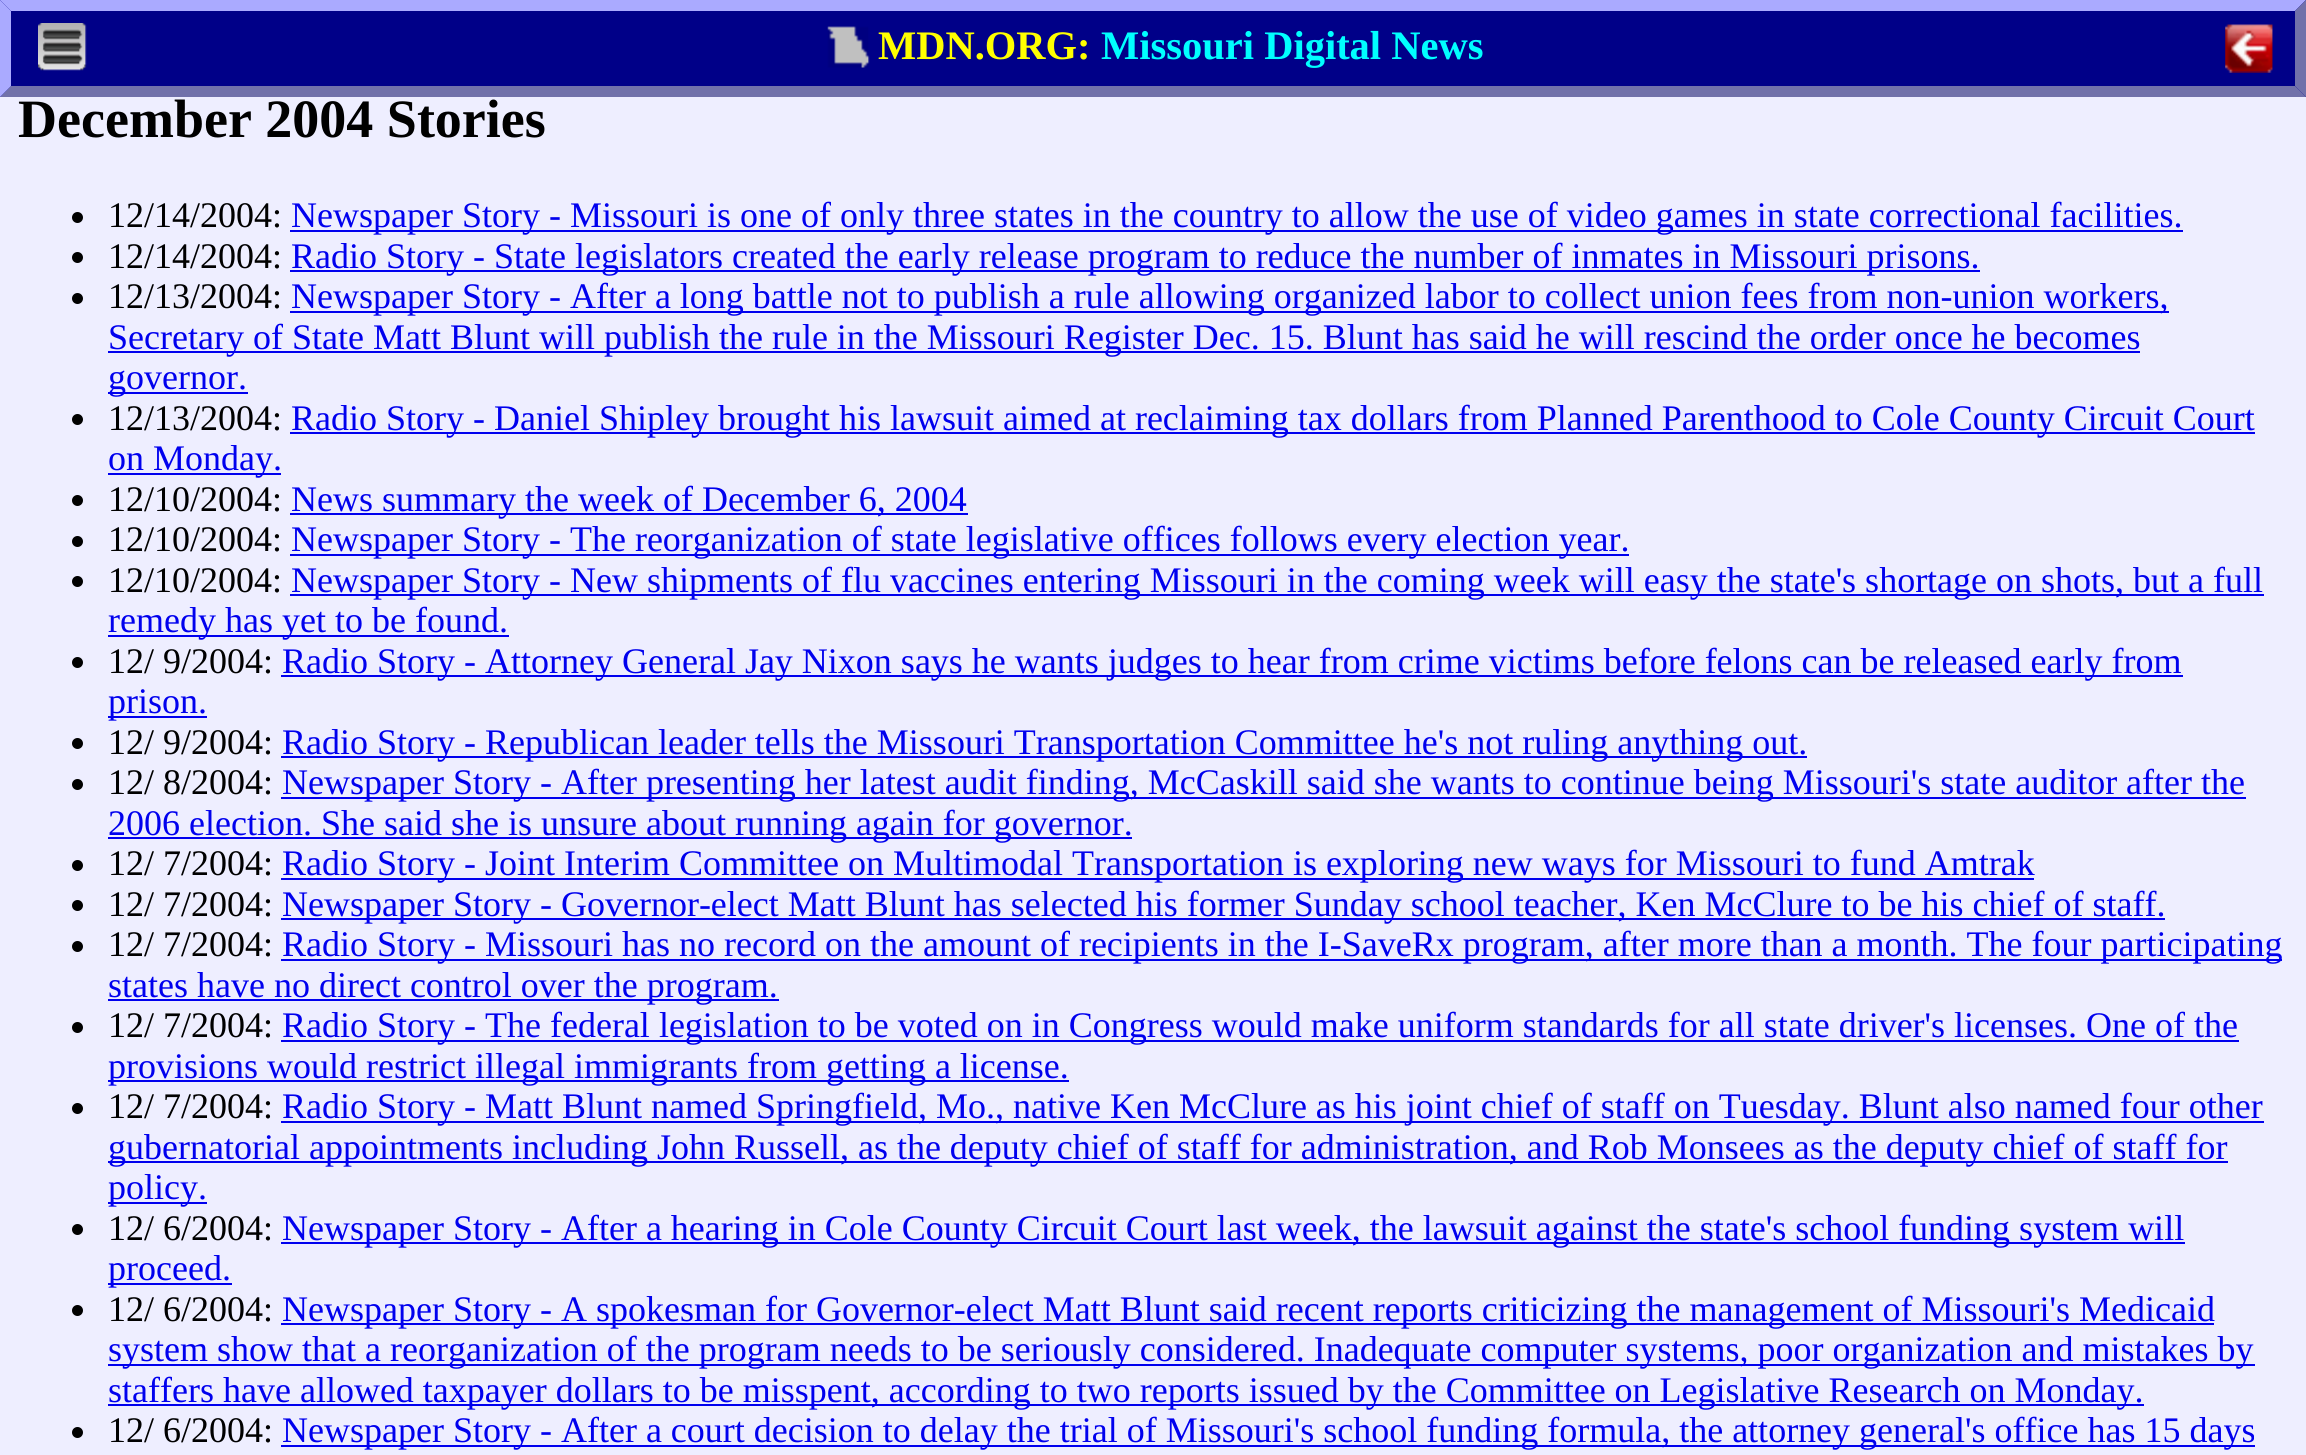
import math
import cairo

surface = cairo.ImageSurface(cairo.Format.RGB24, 2306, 1455)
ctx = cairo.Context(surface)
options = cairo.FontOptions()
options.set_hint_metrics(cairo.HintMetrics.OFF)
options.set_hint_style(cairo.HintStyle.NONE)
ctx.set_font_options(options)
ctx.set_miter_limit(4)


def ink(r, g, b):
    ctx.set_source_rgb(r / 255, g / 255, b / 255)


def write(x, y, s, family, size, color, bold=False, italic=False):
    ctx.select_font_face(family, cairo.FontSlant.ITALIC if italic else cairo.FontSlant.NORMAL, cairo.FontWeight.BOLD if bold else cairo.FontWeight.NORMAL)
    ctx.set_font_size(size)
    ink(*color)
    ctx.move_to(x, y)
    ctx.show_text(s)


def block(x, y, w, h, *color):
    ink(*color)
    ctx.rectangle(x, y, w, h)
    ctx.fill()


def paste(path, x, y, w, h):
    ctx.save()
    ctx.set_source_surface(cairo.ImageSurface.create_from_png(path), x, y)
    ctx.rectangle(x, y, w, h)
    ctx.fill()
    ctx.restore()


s1 = dict(family="Liberation Serif", size=40.5, color=(255, 255, 0), bold=True)
s2 = dict(family="Liberation Serif", size=40.5, color=(0, 255, 255), bold=True)
s3 = dict(family="Liberation Serif", size=54, color=(0, 0, 0), bold=True)
s4 = dict(family="Liberation Serif", size=36, color=(0, 0, 0))
s5 = dict(family="Liberation Serif", size=36, color=(0, 0, 238))

ink(238, 238, 255)
ctx.paint()
block(0, 0, 2306, 97, 0, 0, 136)
ink(170, 170, 255)
ctx.new_path()
ctx.move_to(0, 0)
ctx.line_to(2306, 0)
ctx.line_to(2295, 11)
ctx.line_to(11, 11)
ctx.close_path()
ctx.fill()
ink(113, 113, 170)
ctx.new_path()
ctx.move_to(2306, 0)
ctx.line_to(2306, 97)
ctx.line_to(2295, 86)
ctx.line_to(2295, 11)
ctx.close_path()
ctx.fill()
ctx.new_path()
ctx.move_to(2306, 97)
ctx.line_to(0, 97)
ctx.line_to(11, 86)
ctx.line_to(2295, 86)
ctx.close_path()
ctx.fill()
ink(170, 170, 255)
ctx.new_path()
ctx.move_to(0, 97)
ctx.line_to(0, 0)
ctx.line_to(11, 11)
ctx.line_to(11, 86)
ctx.close_path()
ctx.fill()
paste("pic1.png", 38, 23, 49, 48)
paste("pic2.png", 827, 26, 43, 42)
write(878, 59, "MDN.ORG:", **s1)
write(1101, 59, "Missouri Digital News", **s2)
paste("pic3.png", 2225, 24, 48, 49)
write(18, 137, "December 2004 Stories", **s3)
ctx.new_path()
ctx.arc(77.5, 217.5, 5.5, 0, 2 * math.pi)
ctx.fill()
write(108, 227, "12/14/2004:", **s4)
block(290, 230, 1893, 2, 0, 0, 238)
write(291, 227, "Newspaper Story - Missouri is one of only three states in the country to allow the use of video games in state correctional facilities.", **s5)
ink(0, 0, 0)
ctx.new_path()
ctx.arc(77.5, 257.5, 5.5, 0, 2 * math.pi)
ctx.fill()
write(108, 268, "12/14/2004:", **s4)
block(290, 270, 1690, 2, 0, 0, 238)
write(291, 268, "Radio Story - State legislators created the early release program to reduce the number of inmates in Missouri prisons.", **s5)
ink(0, 0, 0)
ctx.new_path()
ctx.arc(77.5, 298.5, 5.5, 0, 2 * math.pi)
ctx.fill()
write(108, 308, "12/13/2004:", **s4)
block(290, 311, 1879, 2, 0, 0, 238)
write(291, 308, "Newspaper Story - After a long battle not to publish a rule allowing organized labor to collect union fees from non-union workers,", **s5)
block(108, 351, 2032, 2, 0, 0, 238)
write(108, 349, "Secretary of State Matt Blunt will publish the rule in the Missouri Register Dec. 15. Blunt has said he will rescind the order once he becomes", **s5)
block(108, 392, 140, 2, 0, 0, 238)
write(108, 389, "governor.", **s5)
ink(0, 0, 0)
ctx.new_path()
ctx.arc(77.5, 419.5, 5.5, 0, 2 * math.pi)
ctx.fill()
write(108, 430, "12/13/2004:", **s4)
block(290, 432, 1965, 2, 0, 0, 238)
write(291, 430, "Radio Story - Daniel Shipley brought his lawsuit aimed at reclaiming tax dollars from Planned Parenthood to Cole County Circuit Court", **s5)
block(108, 473, 173, 2, 0, 0, 238)
write(108, 470, "on Monday.", **s5)
ink(0, 0, 0)
ctx.new_path()
ctx.arc(77.5, 500.5, 5.5, 0, 2 * math.pi)
ctx.fill()
write(108, 511, "12/10/2004:", **s4)
block(290, 513, 678, 2, 0, 0, 238)
write(291, 511, "News summary the week of December 6, 2004", **s5)
ink(0, 0, 0)
ctx.new_path()
ctx.arc(77.5, 541.5, 5.5, 0, 2 * math.pi)
ctx.fill()
write(108, 551, "12/10/2004:", **s4)
block(290, 554, 1339, 2, 0, 0, 238)
write(291, 551, "Newspaper Story - The reorganization of state legislative offices follows every election year.", **s5)
ink(0, 0, 0)
ctx.new_path()
ctx.arc(77.5, 581.5, 5.5, 0, 2 * math.pi)
ctx.fill()
write(108, 592, "12/10/2004:", **s4)
block(290, 594, 1974, 2, 0, 0, 238)
write(291, 592, "Newspaper Story - New shipments of flu vaccines entering Missouri in the coming week will easy the state's shortage on shots, but a full", **s5)
block(108, 635, 401, 2, 0, 0, 238)
write(108, 632, "remedy has yet to be found.", **s5)
ink(0, 0, 0)
ctx.new_path()
ctx.arc(77.5, 662.5, 5.5, 0, 2 * math.pi)
ctx.fill()
write(108, 673, "12/ 9/2004:", **s4)
block(281, 675, 1902, 2, 0, 0, 238)
write(282, 673, "Radio Story - Attorney General Jay Nixon says he wants judges to hear from crime victims before felons can be released early from", **s5)
block(108, 716, 99, 2, 0, 0, 238)
write(108, 713, "prison.", **s5)
ink(0, 0, 0)
ctx.new_path()
ctx.arc(77.5, 743.5, 5.5, 0, 2 * math.pi)
ctx.fill()
write(108, 754, "12/ 9/2004:", **s4)
block(281, 756, 1526, 2, 0, 0, 238)
write(282, 754, "Radio Story - Republican leader tells the Missouri Transportation Committee he's not ruling anything out.", **s5)
ink(0, 0, 0)
ctx.new_path()
ctx.arc(77.5, 784.5, 5.5, 0, 2 * math.pi)
ctx.fill()
write(108, 794, "12/ 8/2004:", **s4)
block(281, 797, 1965, 2, 0, 0, 238)
write(282, 794, "Newspaper Story - After presenting her latest audit finding, McCaskill said she wants to continue being Missouri's state auditor after the", **s5)
block(108, 837, 1024, 2, 0, 0, 238)
write(108, 835, "2006 election. She said she is unsure about running again for governor.", **s5)
ink(0, 0, 0)
ctx.new_path()
ctx.arc(77.5, 865.5, 5.5, 0, 2 * math.pi)
ctx.fill()
write(108, 875, "12/ 7/2004:", **s4)
block(281, 878, 1753, 2, 0, 0, 238)
write(282, 875, "Radio Story - Joint Interim Committee on Multimodal Transportation is exploring new ways for Missouri to fund Amtrak", **s5)
ink(0, 0, 0)
ctx.new_path()
ctx.arc(77.5, 905.5, 5.5, 0, 2 * math.pi)
ctx.fill()
write(108, 916, "12/ 7/2004:", **s4)
block(281, 918, 1884, 2, 0, 0, 238)
write(282, 916, "Newspaper Story - Governor-elect Matt Blunt has selected his former Sunday school teacher, Ken McClure to be his chief of staff.", **s5)
ink(0, 0, 0)
ctx.new_path()
ctx.arc(77.5, 946.5, 5.5, 0, 2 * math.pi)
ctx.fill()
write(108, 956, "12/ 7/2004:", **s4)
block(281, 959, 2001, 2, 0, 0, 238)
write(282, 956, "Radio Story - Missouri has no record on the amount of recipients in the I-SaveRx program, after more than a month. The four participating", **s5)
block(108, 999, 671, 2, 0, 0, 238)
write(108, 997, "states have no direct control over the program.", **s5)
ink(0, 0, 0)
ctx.new_path()
ctx.arc(77.5, 1027.5, 5.5, 0, 2 * math.pi)
ctx.fill()
write(108, 1037, "12/ 7/2004:", **s4)
block(281, 1040, 1958, 2, 0, 0, 238)
write(282, 1037, "Radio Story - The federal legislation to be voted on in Congress would make uniform standards for all state driver's licenses. One of the", **s5)
block(108, 1080, 961, 2, 0, 0, 238)
write(108, 1078, "provisions would restrict illegal immigrants from getting a license.", **s5)
ink(0, 0, 0)
ctx.new_path()
ctx.arc(77.5, 1108.5, 5.5, 0, 2 * math.pi)
ctx.fill()
write(108, 1118, "12/ 7/2004:", **s4)
block(281, 1121, 1983, 2, 0, 0, 238)
write(282, 1118, "Radio Story - Matt Blunt named Springfield, Mo., native Ken McClure as his joint chief of staff on Tuesday. Blunt also named four other", **s5)
block(108, 1161, 2120, 2, 0, 0, 238)
write(108, 1159, "gubernatorial appointments including John Russell, as the deputy chief of staff for administration, and Rob Monsees as the deputy chief of staff for", **s5)
block(108, 1202, 99, 2, 0, 0, 238)
write(108, 1199, "policy.", **s5)
ink(0, 0, 0)
ctx.new_path()
ctx.arc(77.5, 1229.5, 5.5, 0, 2 * math.pi)
ctx.fill()
write(108, 1240, "12/ 6/2004:", **s4)
block(281, 1242, 1904, 2, 0, 0, 238)
write(282, 1240, "Newspaper Story - After a hearing in Cole County Circuit Court last week, the lawsuit against the state's school funding system will", **s5)
block(108, 1283, 124, 2, 0, 0, 238)
write(108, 1280, "proceed.", **s5)
ink(0, 0, 0)
ctx.new_path()
ctx.arc(77.5, 1310.5, 5.5, 0, 2 * math.pi)
ctx.fill()
write(108, 1321, "12/ 6/2004:", **s4)
block(281, 1323, 1933, 2, 0, 0, 238)
write(282, 1321, "Newspaper Story - A spokesman for Governor-elect Matt Blunt said recent reports criticizing the management of Missouri's Medicaid", **s5)
block(108, 1364, 2147, 2, 0, 0, 238)
write(108, 1361, "system show that a reorganization of the program needs to be seriously considered. Inadequate computer systems, poor organization and mistakes by", **s5)
block(108, 1404, 2036, 2, 0, 0, 238)
write(108, 1402, "staffers have allowed taxpayer dollars to be misspent, according to two reports issued by the Committee on Legislative Research on Monday.", **s5)
ink(0, 0, 0)
ctx.new_path()
ctx.arc(77.5, 1432.5, 5.5, 0, 2 * math.pi)
ctx.fill()
write(108, 1442, "12/ 6/2004:", **s4)
block(281, 1445, 1974, 2, 0, 0, 238)
write(282, 1442, "Newspaper Story - After a court decision to delay the trial of Missouri's school funding formula, the attorney general's office has 15 days", **s5)
surface.write_to_png("screenshot.png")
